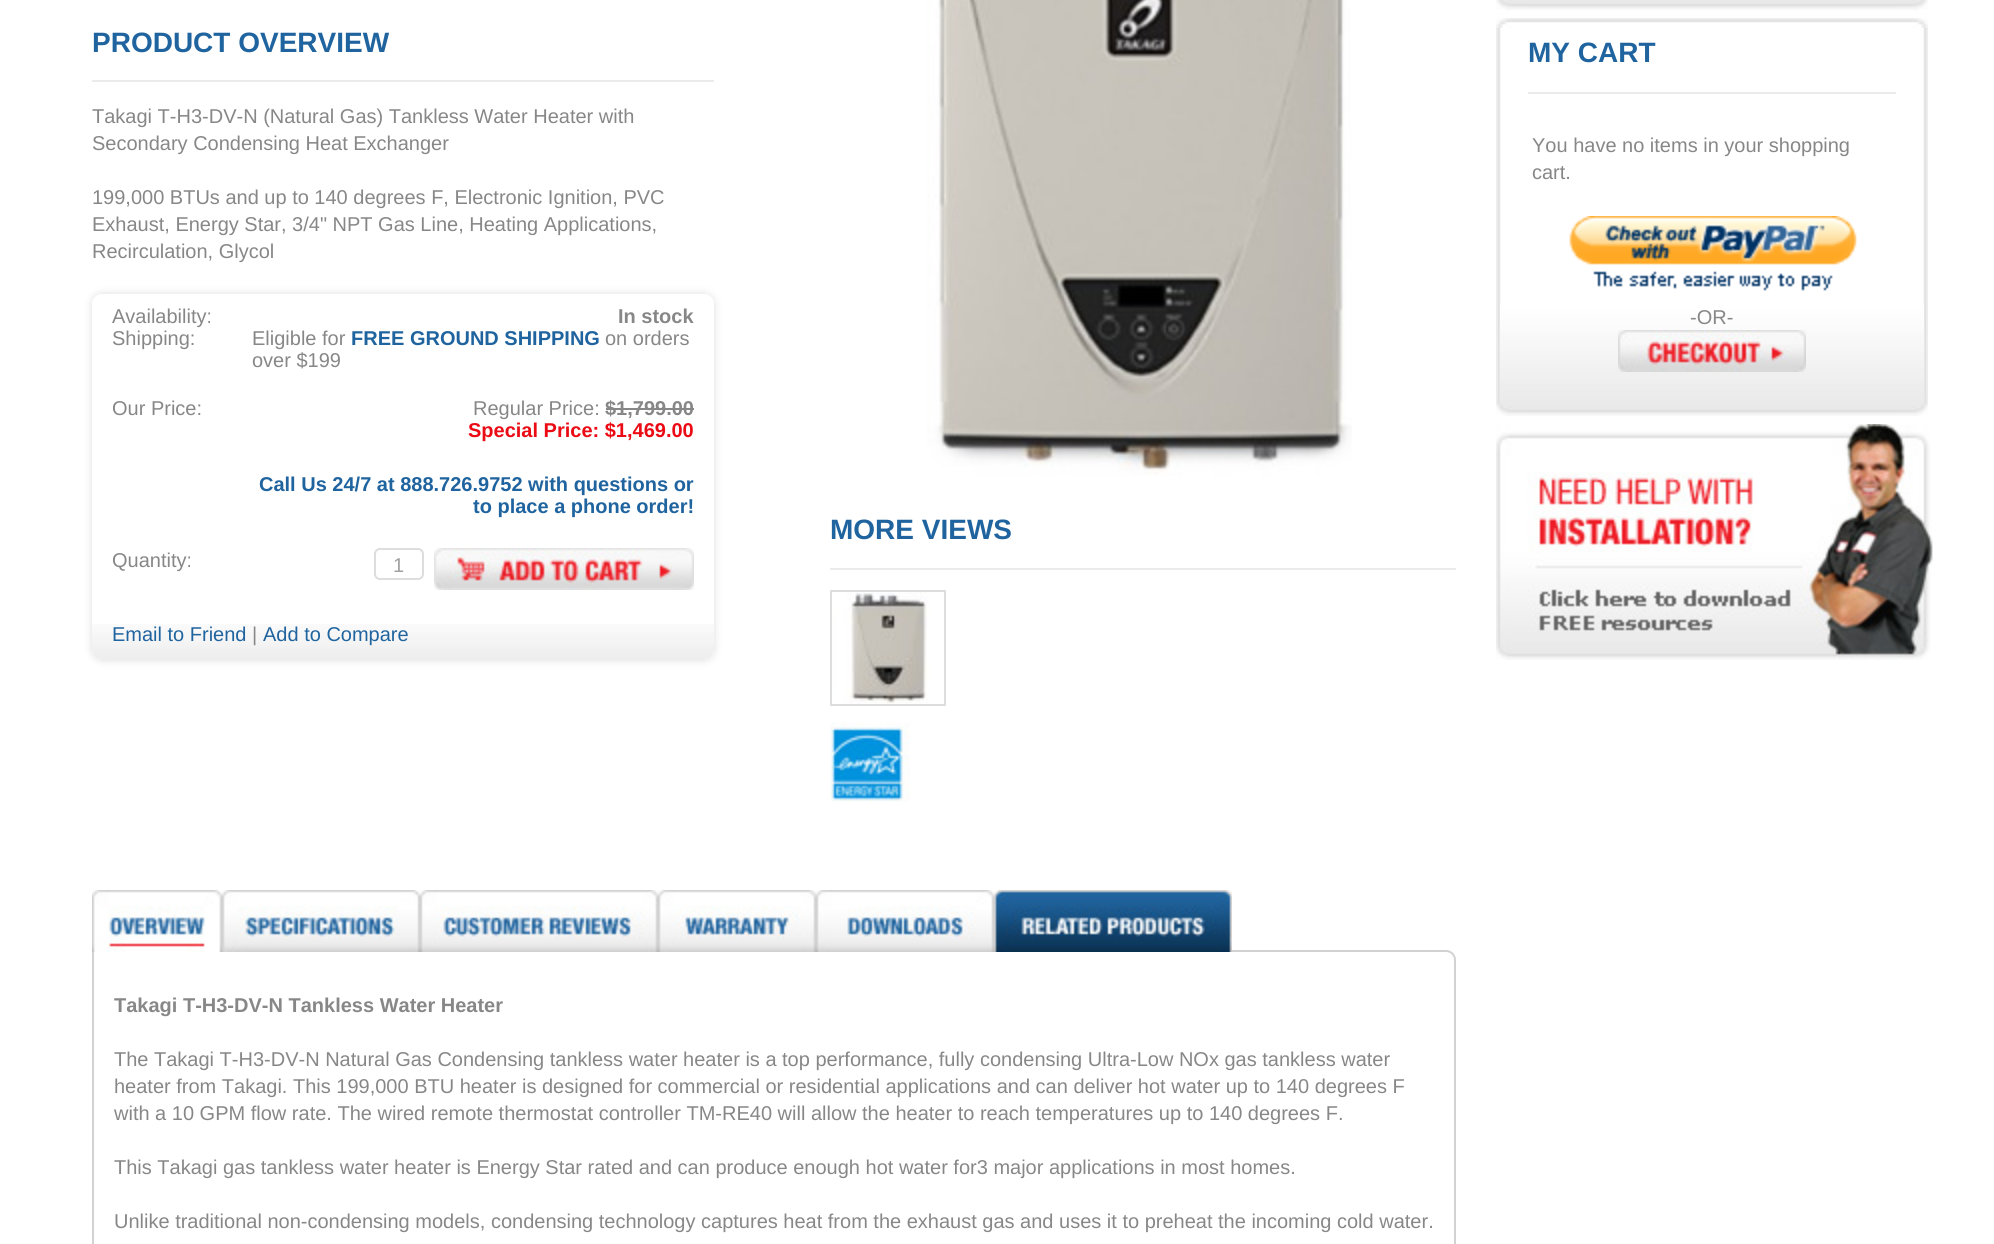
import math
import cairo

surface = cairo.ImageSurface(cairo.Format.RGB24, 1994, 1244)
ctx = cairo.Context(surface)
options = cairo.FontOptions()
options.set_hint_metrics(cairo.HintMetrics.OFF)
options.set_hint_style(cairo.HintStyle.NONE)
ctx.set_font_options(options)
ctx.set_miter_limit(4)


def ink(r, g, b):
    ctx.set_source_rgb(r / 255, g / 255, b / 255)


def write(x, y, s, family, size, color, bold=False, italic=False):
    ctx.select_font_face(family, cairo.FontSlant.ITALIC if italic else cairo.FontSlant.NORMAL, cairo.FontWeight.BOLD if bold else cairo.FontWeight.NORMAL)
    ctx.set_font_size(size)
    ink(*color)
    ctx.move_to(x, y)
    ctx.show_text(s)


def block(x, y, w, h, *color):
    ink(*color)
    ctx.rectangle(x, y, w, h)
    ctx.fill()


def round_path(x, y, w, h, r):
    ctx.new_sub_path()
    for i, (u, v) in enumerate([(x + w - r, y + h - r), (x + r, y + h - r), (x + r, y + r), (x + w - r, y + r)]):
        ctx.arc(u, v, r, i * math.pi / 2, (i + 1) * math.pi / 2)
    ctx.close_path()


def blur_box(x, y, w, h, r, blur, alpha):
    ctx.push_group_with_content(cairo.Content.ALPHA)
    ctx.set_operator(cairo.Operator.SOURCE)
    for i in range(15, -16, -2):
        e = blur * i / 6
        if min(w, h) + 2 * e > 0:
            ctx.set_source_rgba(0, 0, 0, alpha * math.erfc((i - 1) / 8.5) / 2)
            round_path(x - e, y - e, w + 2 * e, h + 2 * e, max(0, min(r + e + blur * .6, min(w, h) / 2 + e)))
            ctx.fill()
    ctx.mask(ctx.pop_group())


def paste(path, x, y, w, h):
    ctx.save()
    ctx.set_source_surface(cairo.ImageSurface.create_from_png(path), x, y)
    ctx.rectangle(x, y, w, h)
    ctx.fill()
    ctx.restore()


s1 = dict(family="Liberation Sans", size=28, color=(32, 100, 159), bold=True)
s2 = dict(family="Liberation Sans", size=20, color=(135, 135, 135))
s3 = dict(family="Liberation Sans", size=20, color=(135, 135, 135), bold=True)
s4 = dict(family="Liberation Sans", size=20, color=(32, 100, 159), bold=True)
s5 = dict(family="Liberation Sans", size=20, color=(235, 11, 20), bold=True)
s6 = dict(family="Liberation Sans", size=20, color=(161, 161, 161))
s7 = dict(family="Liberation Sans", size=20, color=(32, 100, 159))

ink(255, 255, 255)
ctx.paint()
block(92, 80, 622, 2, 235, 235, 235)
write(92, 52, "PRODUCT OVERVIEW", **s1)
write(92, 123, "Takagi T-H3-DV-N (Natural Gas) Tankless Water Heater with", **s2)
write(92, 150, "Secondary Condensing Heat Exchanger", **s2)
write(92, 204, "199,000 BTUs and up to 140 degrees F, Electronic Ignition, PVC", **s2)
write(92, 231, "Exhaust, Energy Star, 3/4\" NPT Gas Line, Heating Applications,", **s2)
write(92, 258, "Recirculation, Glycol", **s2)
ctx.save()
ctx.set_fill_rule(cairo.FillRule.EVEN_ODD)
ctx.new_path()
ctx.move_to(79, 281)
ctx.line_to(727, 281)
ctx.line_to(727, 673)
ctx.line_to(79, 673)
ctx.close_path()
ctx.move_to(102, 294)
ctx.line_to(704, 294)
ctx.curve_to(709.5, 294, 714, 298.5, 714, 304)
ctx.line_to(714, 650)
ctx.curve_to(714, 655.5, 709.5, 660, 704, 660)
ctx.line_to(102, 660)
ctx.curve_to(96.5, 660, 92, 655.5, 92, 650)
ctx.line_to(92, 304)
ctx.curve_to(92, 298.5, 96.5, 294, 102, 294)
ctx.close_path()
ctx.clip()
ink(221, 221, 221)
blur_box(92, 294, 622, 366, 10, 4, 1)
ctx.restore()
paste("pic1.png", 92, 624, 622, 36)
write(112, 323, "Availability:", **s2)
write(618, 323, "In stock", **s3)
write(112, 345, "Shipping:", **s2)
write(252, 345, "Eligible for", **s2)
write(351, 345, "FREE GROUND SHIPPING", **s4)
write(605, 345, "on orders", **s2)
write(252, 367, "over $199", **s2)
write(112, 415, "Our Price:", **s2)
write(473, 415, "Regular Price:", **s2)
write(605, 415, "$1,799.00", **s3)
block(606, 408, 88, 2, 135, 135, 135)
write(468, 437, "Special Price: $1,469.00", **s5)
write(259, 491, "Call Us 24/7 at 888.726.9752 with questions or", **s4)
write(473, 513, "to place a phone order!", **s4)
write(112, 567, "Quantity:", **s2)
round_path(375, 549, 48, 30, 5)
ink(221, 221, 221)
ctx.stroke()
write(393, 572, "1", **s6)
paste("pic2.png", 434, 548, 260, 42)
write(112, 641, "Email to Friend", **s7)
write(252, 641, "|", **s2)
write(263, 641, "Add to Compare", **s7)
paste("pic3.png", 927, 0, 425, 476)
block(830, 568, 626, 2, 235, 235, 235)
write(830, 539, "MORE VIEWS", **s1)
block(830, 590, 116, 116, 221, 221, 221)
paste("pic4.png", 832, 592, 112, 112)
paste("pic5.png", 830, 722, 80, 80)
ctx.new_path()
ctx.move_to(93, 951)
ctx.line_to(1446, 951)
ctx.curve_to(1451, 951, 1455, 955, 1455, 960)
ctx.line_to(1455, 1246)
ctx.curve_to(1455, 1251, 1451, 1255, 1446, 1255)
ctx.line_to(102, 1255)
ctx.curve_to(97, 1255, 93, 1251, 93, 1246)
ctx.close_path()
ink(211, 210, 210)
ctx.stroke()
paste("pic6.png", 92, 890, 130, 62)
paste("pic7.png", 222, 890, 198, 62)
paste("pic8.png", 420, 890, 238, 62)
paste("pic9.png", 658, 890, 158, 62)
paste("pic10.png", 816, 890, 178, 62)
paste("pic11.png", 994, 890, 238, 62)
write(114, 1012, "Takagi T-H3-DV-N Tankless Water Heater", **s3)
write(114, 1066, "The Takagi T-H3-DV-N Natural Gas Condensing tankless water heater is a top performance, fully condensing Ultra-Low NOx gas tankless water", **s2)
write(114, 1093, "heater from Takagi. This 199,000 BTU heater is designed for commercial or residential applications and can deliver hot water up to 140 degrees F", **s2)
write(114, 1120, "with a 10 GPM flow rate. The wired remote thermostat controller TM-RE40 will allow the heater to reach temperatures up to 140 degrees F.", **s2)
write(114, 1174, "This Takagi gas tankless water heater is Energy Star rated and can produce enough hot water for3 major applications in most homes.", **s2)
write(114, 1228, "Unlike traditional non-condensing models, condensing technology captures heat from the exhaust gas and uses it to preheat the incoming cold water.", **s2)
paste("pic12.png", 1496, 0, 432, 10)
paste("pic13.png", 1496, 18, 432, 10)
paste("pic14.png", 1496, 28, 432, 376)
block(1528, 92, 368, 2, 235, 235, 235)
write(1528, 62, "MY CART", **s1)
paste("pic15.png", 1500, 304, 424, 100)
write(1532, 152, "You have no items in your shopping", **s2)
write(1532, 179, "cart.", **s2)
paste("pic16.png", 1569, 216, 288, 75)
write(1690, 324, "-OR-", **s2)
paste("pic17.png", 1618, 330, 188, 42)
paste("pic18.png", 1496, 404, 432, 12)
paste("pic19.png", 1496, 424, 437, 236)
surface.write_to_png("screenshot.png")
